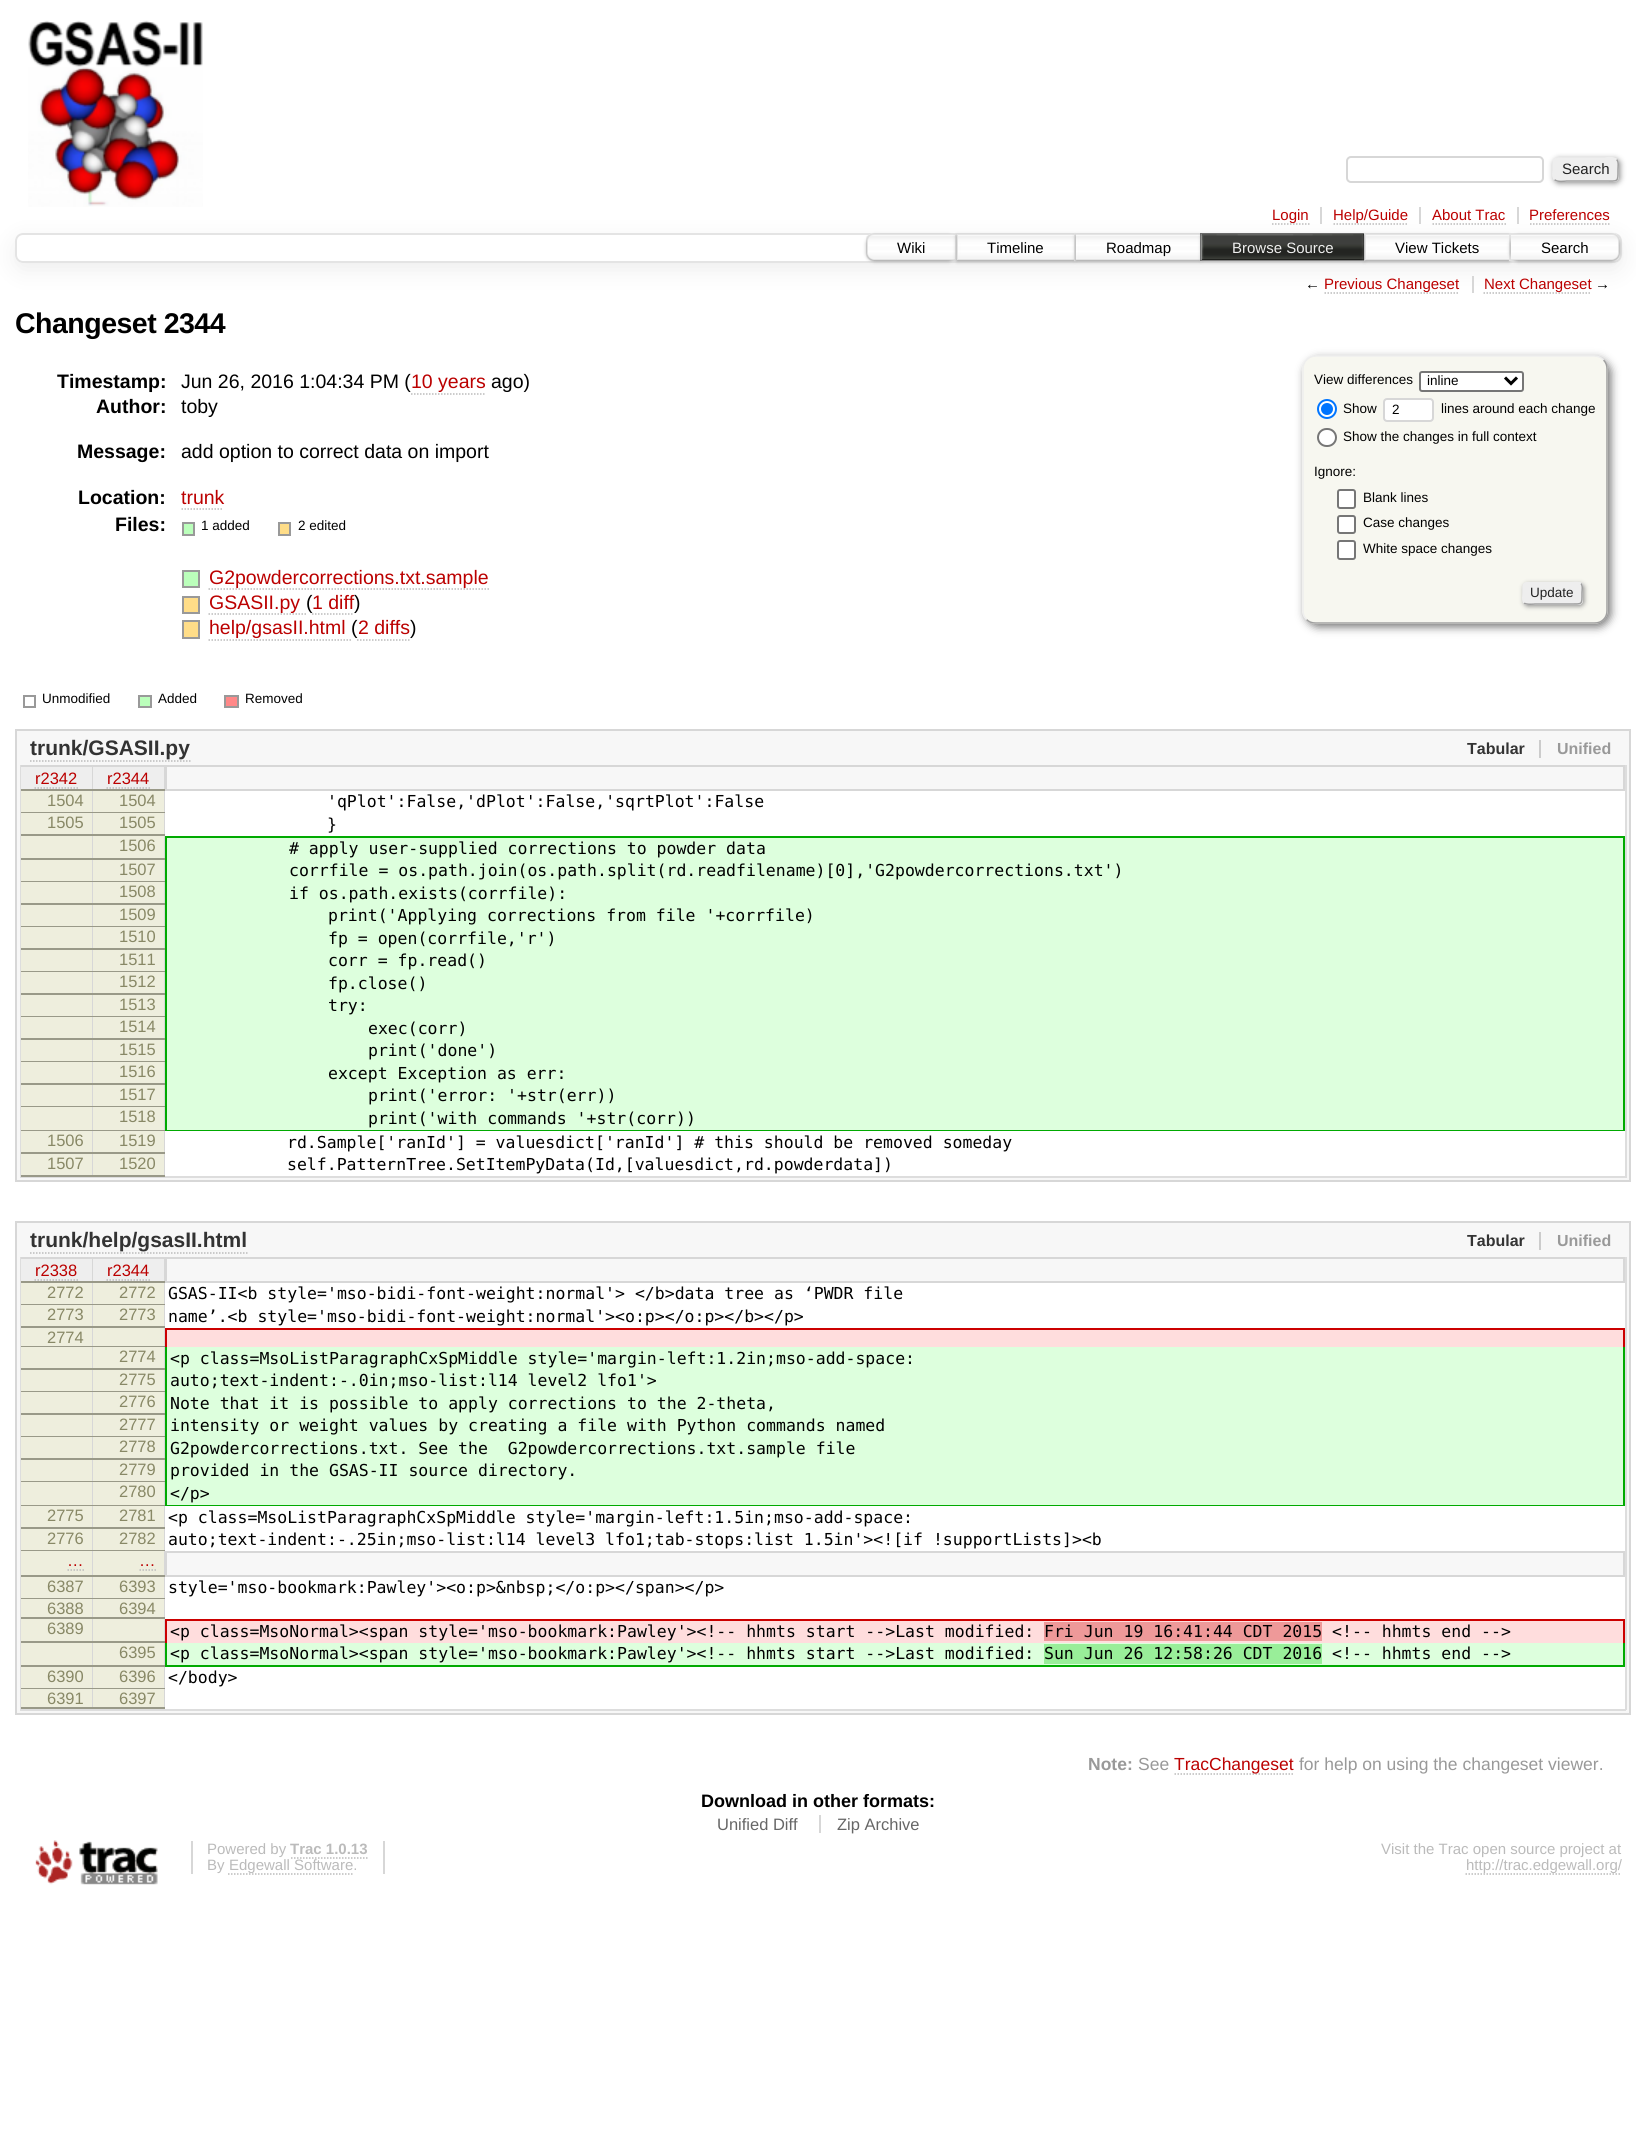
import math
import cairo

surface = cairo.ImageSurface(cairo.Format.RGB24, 1636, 2153)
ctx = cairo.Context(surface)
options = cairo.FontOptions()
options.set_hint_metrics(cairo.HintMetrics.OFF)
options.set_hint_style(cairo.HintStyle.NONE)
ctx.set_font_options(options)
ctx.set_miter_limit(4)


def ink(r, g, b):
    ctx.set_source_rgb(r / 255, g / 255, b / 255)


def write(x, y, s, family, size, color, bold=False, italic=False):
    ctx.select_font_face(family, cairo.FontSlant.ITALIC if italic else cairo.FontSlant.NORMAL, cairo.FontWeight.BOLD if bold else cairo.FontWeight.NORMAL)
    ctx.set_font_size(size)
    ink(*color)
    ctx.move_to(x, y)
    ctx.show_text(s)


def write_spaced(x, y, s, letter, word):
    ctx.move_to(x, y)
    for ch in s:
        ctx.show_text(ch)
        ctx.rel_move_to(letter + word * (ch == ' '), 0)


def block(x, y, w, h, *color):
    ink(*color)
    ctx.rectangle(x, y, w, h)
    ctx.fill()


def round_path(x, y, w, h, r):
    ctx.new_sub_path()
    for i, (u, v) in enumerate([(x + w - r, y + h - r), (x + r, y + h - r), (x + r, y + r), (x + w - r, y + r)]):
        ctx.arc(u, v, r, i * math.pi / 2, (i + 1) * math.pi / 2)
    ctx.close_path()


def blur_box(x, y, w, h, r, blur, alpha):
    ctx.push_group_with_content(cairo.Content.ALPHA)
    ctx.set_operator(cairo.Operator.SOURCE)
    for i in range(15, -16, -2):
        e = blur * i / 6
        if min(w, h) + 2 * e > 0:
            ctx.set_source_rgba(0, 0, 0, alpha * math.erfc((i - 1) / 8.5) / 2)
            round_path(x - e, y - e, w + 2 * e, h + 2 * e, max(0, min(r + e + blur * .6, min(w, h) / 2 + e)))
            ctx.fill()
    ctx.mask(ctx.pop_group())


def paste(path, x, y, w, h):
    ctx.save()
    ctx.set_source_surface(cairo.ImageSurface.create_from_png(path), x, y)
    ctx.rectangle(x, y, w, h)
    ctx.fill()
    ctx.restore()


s1 = dict(family="Liberation Sans", size=15, color=(34, 34, 34))
s2 = dict(family="Liberation Sans", size=15, color=(187, 0, 0))
s3 = dict(family="Liberation Sans", size=15, color=(0, 0, 0))
s4 = dict(family="Liberation Sans", size=15, color=(238, 238, 238))
s5 = dict(family="Liberation Sans", size=19.5, color=(0, 0, 0), bold=True)
s6 = dict(family="Liberation Sans", size=19.5, color=(0, 0, 0))
s7 = dict(family="Liberation Sans", size=19.5, color=(187, 0, 0))
s8 = dict(family="Liberation Sans", size=13.5, color=(0, 0, 0))
s9 = dict(family="Liberation Sans", size=13.5, color=(34, 34, 34))
s10 = dict(family="Liberation Sans", size=21, color=(51, 51, 51), bold=True)
s11 = dict(family="Liberation Sans", size=16, color=(51, 51, 51), bold=True)
s12 = dict(family="Liberation Sans", size=16, color=(153, 153, 153), bold=True)
s13 = dict(family="Liberation Sans", size=16.5, color=(187, 0, 0))
s14 = dict(family="Liberation Sans", size=16.5, color=(136, 136, 102))
s15 = dict(family="DejaVu Sans Mono", size=16.5, color=(0, 0, 0))
s16 = dict(family="Liberation Sans", size=17.5, color=(153, 153, 153), bold=True)
s17 = dict(family="Liberation Sans", size=17.5, color=(153, 153, 153))
s18 = dict(family="Liberation Sans", size=17.5, color=(187, 0, 0))
s19 = dict(family="Liberation Sans", size=18, color=(0, 0, 0), bold=True)
s20 = dict(family="Liberation Sans", size=16.5, color=(102, 102, 102))
s21 = dict(family="Liberation Sans", size=15, color=(187, 187, 187))
s22 = dict(family="Liberation Sans", size=15, color=(187, 187, 187), bold=True)

ink(255, 255, 255)
ctx.paint()
ctx.save()
ctx.set_fill_rule(cairo.FillRule.EVEN_ODD)
ctx.new_path()
ctx.move_to(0, 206)
ctx.line_to(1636, 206)
ctx.line_to(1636, 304)
ctx.line_to(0, 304)
ctx.close_path()
ctx.move_to(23, 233)
ctx.line_to(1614, 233)
ctx.curve_to(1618.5, 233, 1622, 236.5, 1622, 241)
ctx.line_to(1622, 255)
ctx.curve_to(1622, 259.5, 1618.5, 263, 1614, 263)
ctx.line_to(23, 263)
ctx.curve_to(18.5, 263, 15, 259.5, 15, 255)
ctx.line_to(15, 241)
ctx.curve_to(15, 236.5, 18.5, 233, 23, 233)
ctx.close_path()
ctx.clip()
ink(238, 238, 238)
blur_box(15, 240, 1607, 30, 8, 11, 1)
ctx.restore()
paste("pic1.png", 28, 20, 175, 187)
round_path(1347, 157, 196, 25, 4)
ink(215, 215, 215)
ctx.stroke()
ink(136, 136, 136)
blur_box(1554, 159, 66, 24, 5, 3, 1)
ink(238, 238, 238)
round_path(1553, 158, 66, 24, 5)
ctx.fill()
ctx.new_path()
ctx.move_to(1616.5, 159.5)
ctx.curve_to(1619, 161.5, 1618, 166.5, 1618, 169.5)
ctx.curve_to(1618, 182.5, 1618.5, 181, 1604.5, 181)
ctx.line_to(1566.5, 181)
ctx.curve_to(1566, 181, 1557, 182.5, 1554.5, 179.5)
ink(159, 159, 159)
ctx.set_line_width(1.5)
ctx.stroke()
ctx.new_path()
ctx.move_to(1554.5, 179.5)
ctx.curve_to(1552, 177.5, 1553, 172.5, 1553, 169.5)
ctx.curve_to(1553, 156.5, 1552.5, 158, 1566.5, 158)
ctx.line_to(1604.5, 158)
ctx.curve_to(1605, 158, 1614, 156.5, 1616.5, 159.5)
ink(238, 238, 238)
ctx.stroke()
write(1562, 174, "Search", **s1)
block(1320, 207, 2, 17, 215, 215, 215)
ctx.new_path()
ctx.move_to(1272, 224)
ctx.line_to(1309.5, 224)
ink(187, 187, 187)
ctx.set_dash([1.5, 1.5])
ctx.stroke()
write(1272, 220, "Login", **s2)
block(1419, 207, 2, 17, 215, 215, 215)
ctx.new_path()
ctx.move_to(1333.5, 224)
ctx.line_to(1408.5, 224)
ink(187, 187, 187)
ctx.stroke()
write(1333, 220, "Help/Guide", **s2)
block(1517, 207, 2, 17, 215, 215, 215)
write(1432, 220, "About Trac", **s2)
ctx.new_path()
ctx.move_to(1432.5, 224)
ctx.line_to(1506, 224)
ink(187, 187, 187)
ctx.stroke()
write(1529, 220, "Preferences", **s2)
ctx.new_path()
ctx.move_to(1530, 224)
ctx.line_to(1611, 224)
ink(187, 187, 187)
ctx.stroke()
round_path(16, 234, 1605, 28, 7)
ink(228, 228, 228)
ctx.set_line_width(2)
ctx.set_dash([])
ctx.stroke()
ink(255, 255, 255)
ctx.new_path()
ctx.move_to(874, 233)
ctx.line_to(957, 233)
ctx.line_to(957, 261)
ctx.line_to(874, 261)
ctx.curve_to(869.5, 261, 866, 257.5, 866, 253)
ctx.line_to(866, 241)
ctx.curve_to(866, 236.5, 869.5, 233, 874, 233)
ctx.close_path()
ctx.fill()
paste("pic2.png", 866, 235, 89, 26)
ctx.new_path()
ctx.move_to(874, 234)
ctx.line_to(956, 234)
ctx.line_to(956, 260)
ctx.line_to(874, 260)
ctx.curve_to(870, 260, 867, 257, 867, 253)
ctx.line_to(867, 241)
ctx.curve_to(867, 237, 870, 234, 874, 234)
ctx.close_path()
ink(228, 228, 228)
ctx.stroke()
ctx.save()
ctx.set_fill_rule(cairo.FillRule.EVEN_ODD)
ctx.new_path()
ctx.move_to(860, 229)
ctx.line_to(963, 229)
ctx.line_to(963, 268)
ctx.line_to(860, 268)
ctx.close_path()
ctx.move_to(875, 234)
ctx.line_to(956, 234)
ctx.line_to(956, 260)
ctx.line_to(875, 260)
ctx.curve_to(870.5, 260, 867, 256.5, 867, 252)
ctx.line_to(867, 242)
ctx.curve_to(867, 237.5, 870.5, 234, 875, 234)
ctx.close_path()
ctx.clip()
ink(153, 153, 153)
blur_box(867, 236, 89, 25, 8, 2, 1)
ctx.restore()
write(897, 253, "Wiki", **s3)
block(958, 239, 2, 19, 255, 255, 255)
paste("pic3.png", 955, 235, 119, 24)
ctx.rectangle(957, 234, 118, 26)
ink(228, 228, 228)
ctx.stroke()
ctx.save()
ctx.set_fill_rule(cairo.FillRule.EVEN_ODD)
ctx.new_path()
ctx.move_to(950, 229)
ctx.line_to(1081, 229)
ctx.line_to(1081, 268)
ctx.line_to(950, 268)
ctx.close_path()
ctx.move_to(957, 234)
ctx.line_to(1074, 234)
ctx.line_to(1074, 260)
ctx.line_to(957, 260)
ctx.close_path()
ctx.clip()
ink(153, 153, 153)
blur_box(957, 236, 117, 25, 0, 2, 1)
ctx.restore()
write(987, 253, "Timeline", **s3)
block(1076, 235, 2, 24, 255, 255, 255)
paste("pic4.png", 1076, 235, 124, 24)
ctx.rectangle(1075, 234, 126, 26)
ink(228, 228, 228)
ctx.stroke()
ctx.save()
ctx.set_fill_rule(cairo.FillRule.EVEN_ODD)
ctx.new_path()
ctx.move_to(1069, 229)
ctx.line_to(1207, 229)
ctx.line_to(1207, 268)
ctx.line_to(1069, 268)
ctx.close_path()
ctx.move_to(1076, 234)
ctx.line_to(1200, 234)
ctx.line_to(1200, 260)
ctx.line_to(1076, 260)
ctx.close_path()
ctx.clip()
ink(153, 153, 153)
blur_box(1076, 236, 124, 25, 0, 2, 1)
ctx.restore()
write(1106, 253, "Roadmap", **s3)
ctx.rectangle(1201, 234, 163, 26)
ink(102, 102, 102)
ctx.stroke()
ink(153, 153, 153)
blur_box(1202, 236, 162, 25, 0, 2, 1)
block(1202, 234, 162, 26, 0, 0, 0)
paste("pic5.png", 1201, 234, 163, 26)
write(1232, 253, "Browse Source", **s4)
block(1366, 235, 2, 24, 255, 255, 255)
paste("pic6.png", 1363, 235, 146, 24)
ctx.rectangle(1365, 234, 145, 26)
ink(228, 228, 228)
ctx.stroke()
ctx.save()
ctx.set_fill_rule(cairo.FillRule.EVEN_ODD)
ctx.new_path()
ctx.move_to(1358, 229)
ctx.line_to(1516, 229)
ctx.line_to(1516, 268)
ctx.line_to(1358, 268)
ctx.close_path()
ctx.move_to(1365, 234)
ctx.line_to(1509, 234)
ctx.line_to(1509, 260)
ctx.line_to(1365, 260)
ctx.close_path()
ctx.clip()
ink(153, 153, 153)
blur_box(1365, 236, 144, 25, 0, 2, 1)
ctx.restore()
write(1395, 253, "View Tickets", **s3)
ink(255, 255, 255)
ctx.new_path()
ctx.move_to(1509, 233)
ctx.line_to(1612, 233)
ctx.curve_to(1616.5, 233, 1620, 236.5, 1620, 241)
ctx.line_to(1620, 253)
ctx.curve_to(1620, 257.5, 1616.5, 261, 1612, 261)
ctx.line_to(1509, 261)
ctx.close_path()
ctx.fill()
paste("pic7.png", 1511, 235, 109, 26)
ctx.new_path()
ctx.move_to(1510, 234)
ctx.line_to(1612, 234)
ctx.curve_to(1616, 234, 1619, 237, 1619, 241)
ctx.line_to(1619, 253)
ctx.curve_to(1619, 257, 1616, 260, 1612, 260)
ctx.line_to(1510, 260)
ctx.close_path()
ink(228, 228, 228)
ctx.stroke()
ctx.save()
ctx.set_fill_rule(cairo.FillRule.EVEN_ODD)
ctx.new_path()
ctx.move_to(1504, 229)
ctx.line_to(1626, 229)
ctx.line_to(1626, 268)
ctx.line_to(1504, 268)
ctx.close_path()
ctx.move_to(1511, 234)
ctx.line_to(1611, 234)
ctx.curve_to(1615.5, 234, 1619, 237.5, 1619, 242)
ctx.line_to(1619, 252)
ctx.curve_to(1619, 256.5, 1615.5, 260, 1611, 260)
ctx.line_to(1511, 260)
ctx.close_path()
ctx.clip()
ink(153, 153, 153)
blur_box(1511, 236, 108, 25, 8, 2, 1)
ctx.restore()
write(1541, 253, "Search", **s3)
block(1472, 276, 2, 17, 215, 215, 215)
write(1305, 289, "←", **s3)
ctx.new_path()
ctx.move_to(1324.5, 293)
ctx.line_to(1459.5, 293)
ink(187, 187, 187)
ctx.set_line_width(1.5)
ctx.set_dash([1.5, 1.5])
ctx.stroke()
write(1324, 289, "Previous Changeset", **s2)
ctx.new_path()
ctx.move_to(1483.5, 293)
ctx.line_to(1591.5, 293)
ink(187, 187, 187)
ctx.stroke()
write(1484, 289, "Next Changeset", **s2)
write(1595, 289, "→", **s3)
ctx.select_font_face("Liberation Sans", cairo.FontSlant.NORMAL, cairo.FontWeight.BOLD)
ctx.set_font_size(28.5)
write_spaced(15, 333, "Changeset 2344", -0.5, 0)
write(57, 388, "Timestamp:", **s5)
write(181, 388, "Jun 26, 2016 1:04:34 PM (", **s6)
write(411, 388, "10 years", **s7)
ctx.new_path()
ctx.move_to(411, 394)
ctx.line_to(486, 394)
ink(187, 187, 187)
ctx.stroke()
write(491, 388, "ago)", **s6)
write(96, 413, "Author:", **s5)
write(181, 413, "toby", **s6)
write(77, 458, "Message:", **s5)
write(181, 458, "add option to correct data on import", **s6)
write(78, 504, "Location:", **s5)
write(181, 504, "trunk", **s7)
ctx.new_path()
ctx.move_to(181.5, 509)
ctx.line_to(223.5, 509)
ink(187, 187, 187)
ctx.stroke()
write(115, 531, "Files:", **s5)
ink(187, 255, 187)
ctx.rectangle(183, 523, 11, 12)
ctx.fill_preserve()
ink(153, 153, 153)
ctx.set_line_width(2)
ctx.set_dash([])
ctx.stroke()
write(201, 530, "1 added", **s8)
ink(255, 221, 136)
ctx.rectangle(279, 523, 11, 12)
ctx.fill_preserve()
ink(153, 153, 153)
ctx.stroke()
write(298, 530, "2 edited", **s8)
ink(187, 255, 187)
ctx.rectangle(183, 571, 16, 16)
ctx.fill_preserve()
ink(153, 153, 153)
ctx.stroke()
ctx.new_path()
ctx.move_to(208.5, 589)
ctx.line_to(489, 589)
ink(187, 187, 187)
ctx.set_line_width(1.5)
ctx.set_dash([1.5, 1.5])
ctx.stroke()
write(209, 584, "G2powdercorrections.txt.sample", **s7)
ink(255, 221, 136)
ctx.rectangle(183, 597, 16, 16)
ctx.fill_preserve()
ink(153, 153, 153)
ctx.set_line_width(2)
ctx.set_dash([])
ctx.stroke()
ctx.new_path()
ctx.move_to(208.5, 614)
ctx.line_to(306, 614)
ink(187, 187, 187)
ctx.set_line_width(1.5)
ctx.set_dash([1.5, 1.5])
ctx.stroke()
write(209, 609, "GSASII.py", **s7)
write(306, 609, "(", **s6)
write(312, 609, "1 diff", **s7)
ctx.new_path()
ctx.move_to(312, 614)
ctx.line_to(354, 614)
ink(187, 187, 187)
ctx.stroke()
write(354, 609, ")", **s6)
ink(255, 221, 136)
ctx.rectangle(183, 621, 16, 17)
ctx.fill_preserve()
ink(153, 153, 153)
ctx.set_line_width(2)
ctx.set_dash([])
ctx.stroke()
write(209, 634, "help/gsasII.html", **s7)
ctx.new_path()
ctx.move_to(208.5, 640)
ctx.line_to(351, 640)
ink(187, 187, 187)
ctx.set_line_width(1.5)
ctx.set_dash([1.5, 1.5])
ctx.stroke()
write(351, 634, "(", **s6)
write(358, 634, "2 diffs", **s7)
ctx.new_path()
ctx.move_to(357, 640)
ctx.line_to(409.5, 640)
ink(187, 187, 187)
ctx.stroke()
write(410, 634, ")", **s6)
ink(119, 119, 119)
blur_box(1305, 359, 306, 268, 14, 4.5, 1)
ink(247, 247, 240)
round_path(1302, 356, 306, 268, 14)
ctx.fill()
ctx.new_path()
ctx.move_to(1603.5, 360)
ctx.curve_to(1606, 362.5, 1607, 365.5, 1607, 369)
ctx.line_to(1607, 610.5)
ctx.curve_to(1607, 614, 1606, 617, 1603.5, 619.5)
ctx.curve_to(1601, 622, 1598, 623, 1594.5, 623)
ctx.line_to(1315.5, 623)
ctx.curve_to(1312, 623, 1309, 622, 1306.5, 619.5)
ink(159, 159, 159)
ctx.set_dash([])
ctx.stroke()
ctx.new_path()
ctx.move_to(1306.5, 619.5)
ctx.curve_to(1304, 617, 1303, 614, 1303, 610.5)
ctx.line_to(1303, 369)
ctx.curve_to(1303, 365.5, 1304, 362.5, 1306.5, 360)
ctx.curve_to(1309, 357.5, 1312, 356, 1315.5, 356)
ctx.line_to(1594.5, 356)
ctx.curve_to(1598, 356, 1601, 357.5, 1603.5, 360)
ink(238, 238, 238)
ctx.stroke()
write(1314, 384, "View differences", **s8)
ink(255, 255, 255)
round_path(1420, 372, 103, 19, 2)
ctx.fill_preserve()
ink(118, 118, 118)
ctx.set_line_width(2)
ctx.stroke()
ctx.new_path()
ctx.move_to(1505, 377.5)
ctx.line_to(1511, 383.5)
ctx.line_to(1517, 377.5)
ink(0, 0, 0)
ctx.set_line_width(3)
ctx.stroke()
write(1427, 385, "inline", **s8)
ink(255, 255, 255)
ctx.new_path()
ctx.arc(1327, 409, 9, 0, 2 * math.pi)
ctx.fill_preserve()
ink(0, 117, 255)
ctx.set_line_width(2)
ctx.stroke()
ctx.arc(1327, 409, 6, 0, 2 * math.pi)
ctx.fill()
write(1343, 413, "Show", **s8)
ink(255, 255, 255)
round_path(1384, 399, 49, 22, 3)
ctx.fill_preserve()
ink(215, 215, 215)
ctx.stroke()
write(1392, 414, "2", **s8)
write(1441, 413, "lines around each change", **s8)
ink(255, 255, 255)
round_path(1318, 429, 18, 17, 8.5)
ctx.fill_preserve()
ink(118, 118, 118)
ctx.stroke()
write(1343, 441, "Show the changes in full context", **s8)
write(1314, 476, "Ignore:", **s8)
ink(255, 255, 255)
round_path(1338, 490, 17, 18, 2)
ctx.fill_preserve()
ink(118, 118, 118)
ctx.stroke()
write(1363, 502, "Blank lines", **s8)
ink(255, 255, 255)
round_path(1338, 516, 17, 17, 2)
ctx.fill_preserve()
ink(118, 118, 118)
ctx.stroke()
write(1363, 527, "Case changes", **s8)
ink(255, 255, 255)
round_path(1338, 541, 17, 18, 2)
ctx.fill_preserve()
ink(118, 118, 118)
ctx.stroke()
write(1363, 553, "White space changes", **s8)
ink(136, 136, 136)
blur_box(1524, 584, 60, 22, 4, 2.5, 1)
ink(238, 238, 238)
round_path(1523, 582, 60, 23, 4)
ctx.fill()
ctx.new_path()
ctx.move_to(1581, 583.5)
ctx.curve_to(1583, 586, 1582, 590.5, 1582, 593)
ctx.curve_to(1582, 605, 1582.5, 604, 1570, 604)
ctx.line_to(1535, 604)
ctx.curve_to(1535, 604, 1526.5, 605, 1524, 603)
ink(159, 159, 159)
ctx.set_line_width(1.5)
ctx.stroke()
ctx.new_path()
ctx.move_to(1524, 603)
ctx.curve_to(1522, 600.5, 1523, 596, 1523, 593)
ctx.curve_to(1523, 581.5, 1522.5, 583, 1535, 583)
ctx.line_to(1570, 583)
ctx.curve_to(1570, 583, 1578.5, 581.5, 1581, 583.5)
ink(238, 238, 238)
ctx.stroke()
write(1530, 597, "Update", **s9)
ctx.rectangle(24, 696, 11, 11)
ink(153, 153, 153)
ctx.set_line_width(2)
ctx.stroke()
write(42, 703, "Unmodified", **s8)
ink(187, 255, 187)
ctx.rectangle(139, 696, 12, 11)
ctx.fill_preserve()
ink(153, 153, 153)
ctx.stroke()
write(158, 703, "Added", **s8)
ink(255, 136, 136)
ctx.rectangle(225, 696, 13, 11)
ctx.fill_preserve()
ink(153, 153, 153)
ctx.stroke()
write(245, 703, "Removed", **s8)
ink(247, 247, 247)
ctx.rectangle(16, 730, 1614, 451)
ctx.fill_preserve()
ink(215, 215, 215)
ctx.stroke()
write(30, 755, "trunk/GSASII.py", **s10)
ctx.new_path()
ctx.move_to(30, 761)
ctx.line_to(190.5, 761)
ink(187, 187, 187)
ctx.set_line_width(1.5)
ctx.set_dash([1.5, 1.5])
ctx.stroke()
write(1467, 754, "Tabular", **s11)
write(1557, 754, "Unified", **s12)
block(1539, 740, 2, 18, 204, 204, 204)
block(1625, 765, 2, 413, 221, 221, 221)
block(20, 1176, 1606, 2, 221, 221, 221)
block(20, 765, 2, 413, 221, 221, 221)
block(21, 767, 71, 22, 238, 238, 238)
block(21, 765, 144, 2, 215, 215, 215)
block(92, 765, 1, 411, 215, 215, 215)
block(21, 789, 72, 2, 153, 153, 136)
write(35, 784, "r2342", **s13)
ctx.new_path()
ctx.move_to(34.5, 788)
ctx.line_to(78, 788)
ink(187, 187, 187)
ctx.stroke()
block(93, 767, 71, 22, 238, 238, 238)
block(164, 765, 1, 411, 215, 215, 215)
block(93, 789, 72, 2, 153, 153, 136)
write(107, 784, "r2344", **s13)
ctx.new_path()
ctx.move_to(106.5, 788)
ctx.line_to(150, 788)
ink(187, 187, 187)
ctx.stroke()
ctx.rectangle(166, 766, 1458, 24)
ink(215, 215, 215)
ctx.set_line_width(2)
ctx.set_dash([])
ctx.stroke()
block(21, 791, 71, 21, 238, 238, 221)
block(21, 812, 144, 1, 153, 153, 136)
write(47, 806, "1504", **s14)
block(93, 791, 71, 21, 238, 238, 221)
write(119, 806, "1504", **s14)
block(165, 791, 1460, 45, 255, 255, 255)
write(327, 807, "'qPlot':False,'dPlot':False,'sqrtPlot':False", **s15)
block(21, 813, 71, 21, 238, 238, 221)
block(21, 834, 144, 2, 153, 153, 136)
write(47, 828, "1505", **s14)
block(93, 813, 71, 21, 238, 238, 221)
write(119, 828, "1505", **s14)
write(327, 830, "}", **s15)
block(21, 836, 71, 22, 238, 238, 221)
block(21, 858, 144, 2, 153, 153, 136)
block(93, 836, 71, 22, 238, 238, 221)
write(119, 851, "1506", **s14)
block(167, 838, 1456, 292, 221, 255, 221)
block(165, 836, 1460, 2, 0, 170, 0)
block(1623, 836, 2, 295, 0, 170, 0)
block(165, 836, 2, 271, 0, 170, 0)
write(289, 854, "# apply user-supplied corrections to powder data", **s15)
block(21, 860, 71, 21, 238, 238, 221)
block(21, 881, 144, 1, 153, 153, 136)
block(93, 860, 71, 21, 238, 238, 221)
write(119, 875, "1507", **s14)
write(289, 876, "corrfile = os.path.join(os.path.split(rd.readfilename)[0],'G2powdercorrections.txt')", **s15)
block(21, 882, 71, 21, 238, 238, 221)
block(21, 903, 144, 2, 153, 153, 136)
block(93, 882, 71, 21, 238, 238, 221)
write(119, 897, "1508", **s14)
write(289, 899, "if os.path.exists(corrfile):", **s15)
block(21, 905, 71, 21, 238, 238, 221)
block(21, 926, 144, 1, 153, 153, 136)
block(93, 905, 71, 21, 238, 238, 221)
write(119, 920, "1509", **s14)
write(328, 921, "print('Applying corrections from file '+corrfile)", **s15)
block(21, 927, 71, 21, 238, 238, 221)
block(21, 948, 144, 2, 153, 153, 136)
block(93, 927, 71, 21, 238, 238, 221)
write(119, 942, "1510", **s14)
write(328, 944, "fp = open(corrfile,'r')", **s15)
block(21, 950, 71, 21, 238, 238, 221)
block(21, 971, 144, 1, 153, 153, 136)
block(93, 950, 71, 21, 238, 238, 221)
write(119, 965, "1511", **s14)
write(328, 966, "corr = fp.read()", **s15)
block(21, 972, 71, 21, 238, 238, 221)
block(21, 993, 144, 2, 153, 153, 136)
block(93, 972, 71, 21, 238, 238, 221)
write(119, 987, "1512", **s14)
write(328, 989, "fp.close()", **s15)
block(21, 995, 71, 21, 238, 238, 221)
block(21, 1016, 144, 1, 153, 153, 136)
block(93, 995, 71, 21, 238, 238, 221)
write(119, 1010, "1513", **s14)
write(328, 1011, "try:", **s15)
block(21, 1017, 71, 21, 238, 238, 221)
block(21, 1038, 144, 2, 153, 153, 136)
block(93, 1017, 71, 21, 238, 238, 221)
write(119, 1032, "1514", **s14)
write(368, 1034, "exec(corr)", **s15)
block(21, 1040, 71, 21, 238, 238, 221)
block(21, 1061, 144, 1, 153, 153, 136)
block(93, 1040, 71, 21, 238, 238, 221)
write(119, 1055, "1515", **s14)
write(368, 1056, "print('done')", **s15)
block(21, 1062, 71, 21, 238, 238, 221)
block(21, 1083, 144, 2, 153, 153, 136)
block(93, 1062, 71, 21, 238, 238, 221)
write(119, 1077, "1516", **s14)
write(328, 1079, "except Exception as err:", **s15)
block(21, 1085, 71, 21, 238, 238, 221)
block(21, 1106, 144, 1, 153, 153, 136)
block(93, 1085, 71, 21, 238, 238, 221)
write(119, 1100, "1517", **s14)
write(368, 1101, "print('error: '+str(err))", **s15)
block(21, 1107, 71, 23, 238, 238, 221)
block(21, 1130, 144, 1, 153, 153, 136)
block(93, 1107, 71, 23, 238, 238, 221)
write(119, 1122, "1518", **s14)
block(165, 1130, 1460, 1, 0, 170, 0)
block(165, 1107, 2, 24, 0, 170, 0)
write(368, 1124, "print('with commands '+str(corr))", **s15)
block(21, 1131, 71, 21, 238, 238, 221)
block(21, 1152, 144, 2, 153, 153, 136)
write(47, 1146, "1506", **s14)
block(93, 1131, 71, 21, 238, 238, 221)
write(119, 1146, "1519", **s14)
block(165, 1131, 1460, 45, 255, 255, 255)
write(287, 1148, "rd.Sample['ranId'] = valuesdict['ranId'] # this should be removed someday", **s15)
block(21, 1154, 71, 21, 238, 238, 221)
block(21, 1175, 144, 2, 153, 153, 136)
write(47, 1169, "1507", **s14)
block(93, 1154, 71, 21, 238, 238, 221)
write(119, 1169, "1520", **s14)
write(287, 1170, "self.PatternTree.SetItemPyData(Id,[valuesdict,rd.powderdata])", **s15)
ink(247, 247, 247)
ctx.rectangle(16, 1222, 1614, 492)
ctx.fill_preserve()
ink(215, 215, 215)
ctx.stroke()
write(30, 1247, "trunk/help/gsasII.html", **s10)
ctx.new_path()
ctx.move_to(30, 1253)
ctx.line_to(247.5, 1253)
ink(187, 187, 187)
ctx.set_line_width(1.5)
ctx.set_dash([1.5, 1.5])
ctx.stroke()
write(1467, 1246, "Tabular", **s11)
write(1557, 1246, "Unified", **s12)
block(1539, 1232, 2, 18, 204, 204, 204)
block(1625, 1257, 2, 453, 221, 221, 221)
block(20, 1709, 1606, 2, 221, 221, 221)
block(20, 1257, 2, 453, 221, 221, 221)
block(21, 1259, 71, 22, 238, 238, 238)
block(21, 1257, 144, 2, 215, 215, 215)
block(92, 1257, 1, 452, 215, 215, 215)
block(21, 1281, 72, 2, 153, 153, 136)
write(35, 1276, "r2338", **s13)
ctx.new_path()
ctx.move_to(34.5, 1280)
ctx.line_to(78, 1280)
ink(187, 187, 187)
ctx.stroke()
block(93, 1259, 71, 22, 238, 238, 238)
block(164, 1257, 1, 452, 215, 215, 215)
block(93, 1281, 72, 2, 153, 153, 136)
write(107, 1276, "r2344", **s13)
ctx.new_path()
ctx.move_to(106.5, 1280)
ctx.line_to(150, 1280)
ink(187, 187, 187)
ctx.stroke()
ctx.rectangle(166, 1258, 1458, 24)
ink(215, 215, 215)
ctx.set_line_width(2)
ctx.set_dash([])
ctx.stroke()
block(21, 1283, 71, 21, 238, 238, 221)
block(21, 1304, 144, 1, 153, 153, 136)
write(47, 1298, "2772", **s14)
block(93, 1283, 71, 21, 238, 238, 221)
write(119, 1298, "2772", **s14)
block(165, 1283, 1460, 45, 255, 255, 255)
write(168, 1299, "GSAS-II<b style='mso-bidi-font-weight:normal'> </b>data tree as ‘PWDR file", **s15)
block(21, 1305, 71, 21, 238, 238, 221)
block(21, 1326, 144, 2, 153, 153, 136)
write(47, 1320, "2773", **s14)
block(93, 1305, 71, 21, 238, 238, 221)
write(119, 1320, "2773", **s14)
write(168, 1322, "name’.<b style='mso-bidi-font-weight:normal'><o:p></o:p></b></p>", **s15)
block(21, 1328, 71, 18, 238, 238, 221)
block(21, 1346, 144, 1, 153, 153, 136)
write(47, 1343, "2774", **s14)
block(93, 1328, 71, 18, 238, 238, 221)
block(167, 1330, 1456, 17, 255, 221, 221)
block(165, 1328, 1460, 2, 204, 0, 0)
block(1623, 1328, 2, 19, 204, 0, 0)
block(165, 1328, 2, 19, 204, 0, 0)
block(21, 1347, 71, 21, 238, 238, 221)
block(21, 1368, 144, 2, 153, 153, 136)
block(93, 1347, 71, 21, 238, 238, 221)
write(119, 1362, "2774", **s14)
block(167, 1347, 1456, 158, 221, 255, 221)
block(1623, 1347, 2, 159, 0, 170, 0)
block(165, 1347, 2, 135, 0, 170, 0)
write(170, 1364, "<p class=MsoListParagraphCxSpMiddle style='margin-left:1.2in;mso-add-space:", **s15)
block(21, 1370, 71, 21, 238, 238, 221)
block(21, 1391, 144, 1, 153, 153, 136)
block(93, 1370, 71, 21, 238, 238, 221)
write(119, 1385, "2775", **s14)
write(170, 1386, "auto;text-indent:-.0in;mso-list:l14 level2 lfo1'>", **s15)
block(21, 1392, 71, 21, 238, 238, 221)
block(21, 1413, 144, 2, 153, 153, 136)
block(93, 1392, 71, 21, 238, 238, 221)
write(119, 1407, "2776", **s14)
write(170, 1409, "Note that it is possible to apply corrections to the 2-theta,", **s15)
block(21, 1415, 71, 21, 238, 238, 221)
block(21, 1436, 144, 1, 153, 153, 136)
block(93, 1415, 71, 21, 238, 238, 221)
write(119, 1430, "2777", **s14)
write(170, 1431, "intensity or weight values by creating a file with Python commands named", **s15)
block(21, 1437, 71, 21, 238, 238, 221)
block(21, 1458, 144, 2, 153, 153, 136)
block(93, 1437, 71, 21, 238, 238, 221)
write(119, 1452, "2778", **s14)
write(170, 1454, "G2powdercorrections.txt. See the  G2powdercorrections.txt.sample file", **s15)
block(21, 1460, 71, 21, 238, 238, 221)
block(21, 1481, 144, 1, 153, 153, 136)
block(93, 1460, 71, 21, 238, 238, 221)
write(119, 1475, "2779", **s14)
write(170, 1476, "provided in the GSAS-II source directory.", **s15)
block(21, 1482, 71, 23, 238, 238, 221)
block(21, 1505, 144, 1, 153, 153, 136)
block(93, 1482, 71, 23, 238, 238, 221)
write(119, 1497, "2780", **s14)
block(165, 1505, 1460, 1, 0, 170, 0)
block(165, 1482, 2, 24, 0, 170, 0)
write(170, 1499, "</p>", **s15)
block(21, 1506, 71, 21, 238, 238, 221)
block(21, 1527, 144, 2, 153, 153, 136)
write(47, 1521, "2775", **s14)
block(93, 1506, 71, 21, 238, 238, 221)
write(119, 1521, "2781", **s14)
block(165, 1506, 1460, 45, 255, 255, 255)
write(168, 1523, "<p class=MsoListParagraphCxSpMiddle style='margin-left:1.5in;mso-add-space:", **s15)
block(21, 1529, 71, 21, 238, 238, 221)
block(21, 1550, 144, 1, 153, 153, 136)
write(47, 1544, "2776", **s14)
block(93, 1529, 71, 21, 238, 238, 221)
write(119, 1544, "2782", **s14)
write(168, 1545, "auto;text-indent:-.25in;mso-list:l14 level3 lfo1;tab-stops:list 1.5in'><![if !supportLists]><b", **s15)
block(21, 1551, 71, 24, 238, 238, 221)
block(21, 1575, 144, 2, 153, 153, 136)
write(67, 1566, "…", **s13)
ctx.new_path()
ctx.move_to(67.5, 1570)
ctx.line_to(84, 1570)
ink(187, 187, 187)
ctx.set_line_width(1.5)
ctx.set_dash([1.5, 1.5])
ctx.stroke()
block(93, 1551, 71, 24, 238, 238, 221)
write(139, 1566, "…", **s13)
ctx.new_path()
ctx.move_to(139.5, 1570)
ctx.line_to(156, 1570)
ink(187, 187, 187)
ctx.stroke()
ctx.rectangle(166, 1552, 1458, 24)
ink(215, 215, 215)
ctx.set_line_width(2)
ctx.set_dash([])
ctx.stroke()
block(21, 1577, 71, 21, 238, 238, 221)
block(21, 1598, 144, 1, 153, 153, 136)
write(47, 1592, "6387", **s14)
block(93, 1577, 71, 21, 238, 238, 221)
write(119, 1592, "6393", **s14)
block(165, 1577, 1460, 42, 255, 255, 255)
write(168, 1593, "style='mso-bookmark:Pawley'><o:p>&nbsp;</o:p></span></p>", **s15)
block(21, 1599, 71, 18, 238, 238, 221)
block(21, 1617, 144, 2, 153, 153, 136)
write(47, 1614, "6388", **s14)
block(93, 1599, 71, 18, 238, 238, 221)
write(119, 1614, "6394", **s14)
block(21, 1619, 71, 22, 238, 238, 221)
block(21, 1641, 144, 2, 153, 153, 136)
write(47, 1634, "6389", **s14)
block(93, 1619, 71, 22, 238, 238, 221)
block(167, 1621, 1456, 22, 255, 221, 221)
block(165, 1619, 1460, 2, 204, 0, 0)
block(1623, 1619, 2, 24, 204, 0, 0)
block(165, 1619, 2, 24, 204, 0, 0)
write(170, 1637, "<p class=MsoNormal><span style='mso-bookmark:Pawley'><!-- hhmts start -->Last modified:", **s15)
block(1044, 1622, 278, 19, 238, 153, 153)
write(1044, 1637, "Fri Jun 19 16:41:44 CDT 2015 <!-- hhmts end -->", **s15)
block(21, 1643, 71, 22, 238, 238, 221)
block(21, 1665, 144, 2, 153, 153, 136)
block(93, 1643, 71, 22, 238, 238, 221)
write(119, 1658, "6395", **s14)
block(167, 1643, 1456, 22, 221, 255, 221)
block(1623, 1643, 2, 24, 0, 170, 0)
block(165, 1665, 1460, 2, 0, 170, 0)
block(165, 1643, 2, 24, 0, 170, 0)
write(170, 1659, "<p class=MsoNormal><span style='mso-bookmark:Pawley'><!-- hhmts start -->Last modified:", **s15)
block(1044, 1644, 278, 20, 153, 238, 153)
write(1044, 1659, "Sun Jun 26 12:58:26 CDT 2016 <!-- hhmts end -->", **s15)
block(21, 1667, 71, 21, 238, 238, 221)
block(21, 1688, 144, 1, 153, 153, 136)
write(47, 1682, "6390", **s14)
block(93, 1667, 71, 21, 238, 238, 221)
write(119, 1682, "6396", **s14)
block(165, 1667, 1460, 42, 255, 255, 255)
write(168, 1683, "</body>", **s15)
block(21, 1689, 71, 18, 238, 238, 221)
block(21, 1707, 144, 2, 153, 153, 136)
write(47, 1704, "6391", **s14)
block(93, 1689, 71, 18, 238, 238, 221)
write(119, 1704, "6397", **s14)
write(1088, 1770, "Note:", **s16)
write(1138, 1770, "See", **s17)
ctx.new_path()
ctx.move_to(1174.5, 1774)
ctx.line_to(1294.5, 1774)
ink(187, 187, 187)
ctx.set_line_width(1.5)
ctx.set_dash([1.5, 1.5])
ctx.stroke()
write(1174, 1770, "TracChangeset", **s18)
write(1299, 1770, "for help on using the changeset viewer.", **s17)
write(701, 1807, "Download in other formats:", **s19)
write(717, 1830, "Unified Diff", **s20)
block(819, 1815, 2, 18, 215, 215, 215)
write(837, 1830, "Zip Archive", **s20)
paste("pic8.png", 35, 1840, 123, 45)
block(383, 1841, 2, 33, 215, 215, 215)
block(191, 1841, 2, 33, 215, 215, 215)
write(207, 1854, "Powered by", **s21)
write(290, 1854, "Trac 1.0.13", **s22)
ctx.new_path()
ctx.move_to(291, 1858)
ctx.line_to(367.5, 1858)
ctx.stroke()
write(207, 1870, "By", **s21)
ctx.new_path()
ctx.move_to(228, 1874)
ctx.line_to(352.5, 1874)
ctx.stroke()
write(229, 1870, "Edgewall Software.", **s21)
write(1381, 1854, "Visit the Trac open source project at", **s21)
ctx.new_path()
ctx.move_to(1465.5, 1874)
ctx.line_to(1621.5, 1874)
ctx.stroke()
write(1466, 1870, "http://trac.edgewall.org/", **s21)
surface.write_to_png("screenshot.png")
